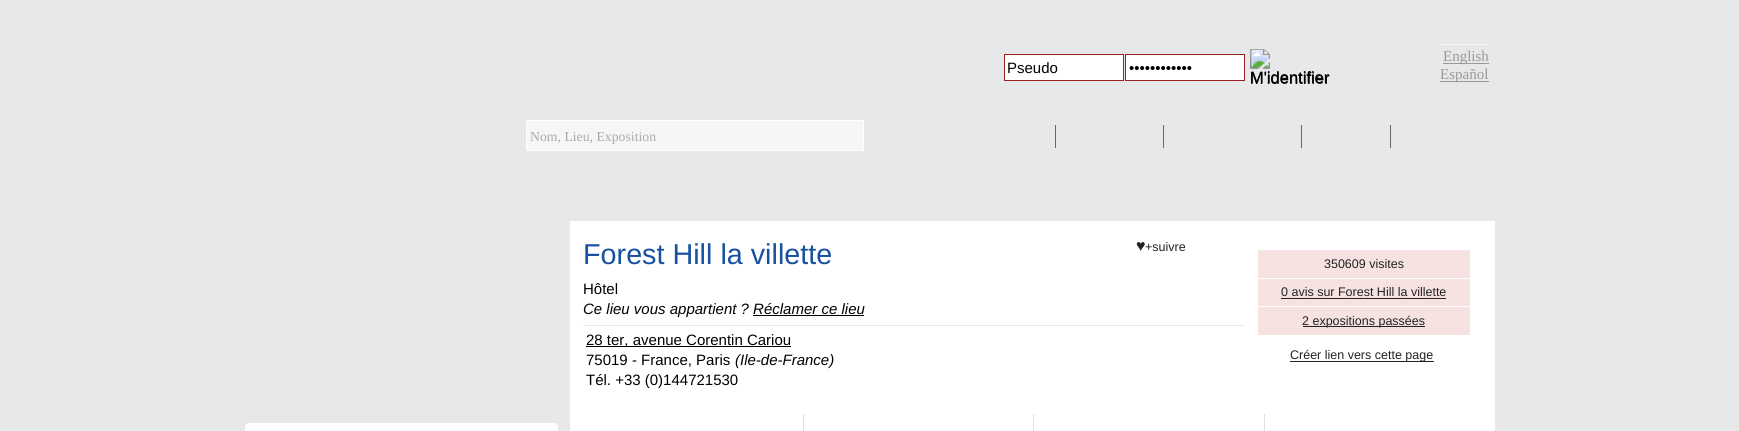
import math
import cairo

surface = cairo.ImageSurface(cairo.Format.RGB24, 1739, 431)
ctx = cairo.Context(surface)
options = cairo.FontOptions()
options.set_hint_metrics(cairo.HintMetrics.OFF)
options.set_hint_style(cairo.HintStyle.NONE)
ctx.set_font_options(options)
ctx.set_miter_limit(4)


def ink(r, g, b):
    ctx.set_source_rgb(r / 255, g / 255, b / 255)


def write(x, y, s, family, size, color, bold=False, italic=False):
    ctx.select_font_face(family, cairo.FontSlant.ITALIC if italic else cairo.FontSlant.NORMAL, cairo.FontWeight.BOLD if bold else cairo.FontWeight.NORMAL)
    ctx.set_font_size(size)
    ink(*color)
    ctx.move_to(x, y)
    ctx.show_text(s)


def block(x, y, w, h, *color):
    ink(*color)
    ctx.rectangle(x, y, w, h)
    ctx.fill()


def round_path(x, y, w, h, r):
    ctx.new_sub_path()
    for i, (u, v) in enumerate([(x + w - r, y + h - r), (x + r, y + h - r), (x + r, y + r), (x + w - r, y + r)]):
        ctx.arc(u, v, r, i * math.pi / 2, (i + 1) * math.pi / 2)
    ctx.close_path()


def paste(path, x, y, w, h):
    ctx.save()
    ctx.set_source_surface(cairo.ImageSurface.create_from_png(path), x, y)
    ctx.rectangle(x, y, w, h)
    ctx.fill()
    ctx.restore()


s1 = dict(family="Liberation Sans", size=15, color=(0, 0, 0))
s2 = dict(family="Liberation Sans", size=16.5, color=(0, 0, 0))
s3 = dict(family="Liberation Serif", size=15, color=(153, 153, 153))
s4 = dict(family="Liberation Serif", size=13.75, color=(170, 170, 170))
s5 = dict(family="Liberation Sans", size=28.75, color=(23, 81, 160))
s6 = dict(family="Liberation Sans", size=16, color=(34, 34, 34))
s7 = dict(family="Liberation Sans", size=12.5, color=(34, 34, 34))
s8 = dict(family="Liberation Sans", size=15, color=(0, 0, 0), italic=True)

ink(231, 232, 234)
ctx.paint()
ink(255, 255, 255)
ctx.rectangle(1004.5, 54.5, 119, 26)
ctx.fill_preserve()
ink(155, 32, 32)
ctx.set_line_width(1)
ctx.stroke()
write(1007, 73, "Pseudo", **s1)
ink(255, 255, 255)
ctx.rectangle(1125.5, 54.5, 119, 26)
ctx.fill_preserve()
ink(155, 32, 32)
ctx.stroke()
write(1129, 73, "••••••••••••", **s1)
paste("pic1.png", 1250, 49, 80, 35)
write(1250, 83, "M'identifier", **s2)
block(1438, 44, 51, 1, 245, 245, 245)
block(1443, 63, 46, 1, 153, 153, 153)
write(1443, 61, "English", **s3)
block(1440, 81, 49, 1, 153, 153, 153)
write(1440, 79, "Español", **s3)
ink(246, 246, 246)
round_path(526.5, 120.5, 337, 30, 0.5)
ctx.fill_preserve()
ink(255, 255, 255)
ctx.stroke()
write(530, 141, "Nom, Lieu, Exposition", **s4)
block(1055, 125, 1, 23, 102, 102, 102)
block(1163, 125, 1, 23, 102, 102, 102)
block(1301, 125, 1, 23, 102, 102, 102)
block(1390, 125, 1, 23, 102, 102, 102)
block(570, 221, 925, 210, 255, 255, 255)
write(583, 264, "Forest Hill la villette", **s5)
write(1136, 251, "♥", **s6)
write(1145, 251, "+suivre", **s7)
block(1258, 250, 212, 85, 247, 226, 226)
write(1324, 268, "350609 visites", **s7)
block(1258, 278, 212, 1, 255, 255, 255)
write(1281, 296, "0 avis sur Forest Hill la villette", **s7)
block(1281, 298, 165, 1, 34, 34, 34)
block(1258, 306, 212, 1, 255, 255, 255)
block(1303, 326, 122, 1, 34, 34, 34)
write(1302, 325, "2 expositions passées", **s7)
block(1290, 361, 144, 1, 34, 34, 34)
write(1290, 359, "Créer lien vers cette page", **s7)
write(583, 294, "Hôtel", **s1)
write(583, 314, "Ce lieu vous appartient ? Réclamer ce lieu", **s8)
block(753, 315, 111, 1, 0, 0, 0)
block(583, 325, 662, 1, 231, 232, 234)
block(586, 346, 205, 1, 0, 0, 0)
write(586, 345, "28 ter, avenue Corentin Cariou", **s1)
write(586, 365, "75019 - France, Paris", **s1)
write(735, 365, "(Ile-de-France)", **s8)
write(586, 385, "Tél. +33 (0)144721530", **s1)
ink(255, 255, 255)
round_path(245, 423, 313, 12, 4)
ctx.fill()
block(803, 414, 1, 17, 224, 224, 224)
block(1033, 414, 1, 17, 224, 224, 224)
block(1264, 414, 1, 17, 224, 224, 224)
surface.write_to_png("screenshot.png")
